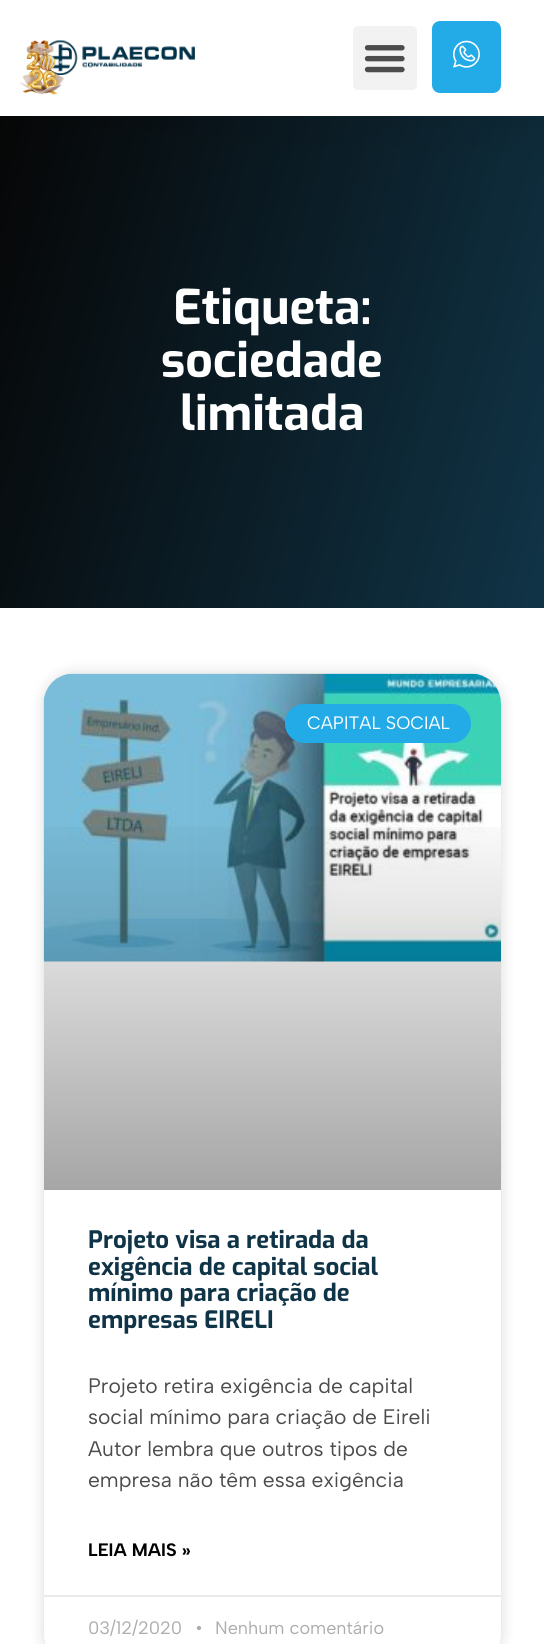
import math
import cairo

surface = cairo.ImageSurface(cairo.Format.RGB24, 544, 1644)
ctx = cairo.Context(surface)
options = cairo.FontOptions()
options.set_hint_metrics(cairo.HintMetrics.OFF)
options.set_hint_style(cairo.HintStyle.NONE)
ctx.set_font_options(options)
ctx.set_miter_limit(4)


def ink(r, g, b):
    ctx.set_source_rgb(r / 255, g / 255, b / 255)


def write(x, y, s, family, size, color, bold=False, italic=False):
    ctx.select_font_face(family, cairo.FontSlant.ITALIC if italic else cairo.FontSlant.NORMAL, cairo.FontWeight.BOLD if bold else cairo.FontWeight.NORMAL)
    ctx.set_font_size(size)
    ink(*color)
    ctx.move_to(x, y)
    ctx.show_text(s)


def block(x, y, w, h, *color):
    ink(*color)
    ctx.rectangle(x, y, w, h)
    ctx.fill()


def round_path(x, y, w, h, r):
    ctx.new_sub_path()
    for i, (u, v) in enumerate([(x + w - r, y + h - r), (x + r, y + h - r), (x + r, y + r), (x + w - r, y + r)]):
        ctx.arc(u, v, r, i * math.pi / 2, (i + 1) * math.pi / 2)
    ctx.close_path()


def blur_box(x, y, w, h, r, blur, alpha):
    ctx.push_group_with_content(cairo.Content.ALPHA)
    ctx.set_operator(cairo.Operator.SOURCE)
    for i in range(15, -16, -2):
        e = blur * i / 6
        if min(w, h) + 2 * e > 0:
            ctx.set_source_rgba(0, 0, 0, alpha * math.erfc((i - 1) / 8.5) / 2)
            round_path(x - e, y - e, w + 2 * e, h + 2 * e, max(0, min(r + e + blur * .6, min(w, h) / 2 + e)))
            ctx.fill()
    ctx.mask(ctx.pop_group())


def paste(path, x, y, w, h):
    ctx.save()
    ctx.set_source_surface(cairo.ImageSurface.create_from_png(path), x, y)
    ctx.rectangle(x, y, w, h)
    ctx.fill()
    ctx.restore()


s1 = dict(family="Exo", size=48, color=(255, 255, 255), bold=True)
s2 = dict(family="Albert Sans", size=18, color=(255, 255, 255))
s3 = dict(family="Exo", size=24, color=(16, 52, 71), bold=True)
s4 = dict(family="Albert Sans", size=21, color=(76, 76, 76))
s5 = dict(family="Albert Sans", size=18, color=(0, 0, 0), bold=True)
s6 = dict(family="Albert Sans", size=18, color=(173, 173, 173))

ink(255, 255, 255)
ctx.paint()
gradient = cairo.LinearGradient(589, 452, -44, 271)
gradient.add_color_stop_rgba(0, 0.063, 0.204, 0.278, 1)
gradient.add_color_stop_rgba(1, 0.024, 0.024, 0.024, 1)
ctx.set_source(gradient)
ctx.rectangle(0, 116, 544, 492)
ctx.fill()
ink(0, 0, 0)
blur_box(0, 9, 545, 116, 0, 25, 0.08)
block(0, 0, 544, 116, 255, 255, 255)
paste("pic2.png", 46, 40, 149, 35)
paste("pic1.png", 20, 40, 44, 55)
ink(242, 242, 242)
round_path(353, 26, 64, 64, 5)
ctx.fill()
paste("pic3.png", 364, 45, 41, 28)
ink(35, 171, 232)
round_path(433, 22, 67, 70, 7)
ctx.fill_preserve()
ctx.stroke()
paste("pic4.png", 453, 40, 27, 28)
write(173, 324, "Etiqueta:", **s1)
write(161, 377, "sociedade", **s1)
write(180, 430, "limitada", **s1)
ink(0, 0, 0)
blur_box(44, 674, 457, 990, 30, 7.5, 0.15)
ink(255, 255, 255)
round_path(44, 674, 457, 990, 30)
ctx.fill()
paste("pic5.png", 43, 673, 458, 289)
gradient = cairo.LinearGradient(272, 1190, 272, 674)
gradient.add_color_stop_rgba(0, 0, 0, 0, 0.35)
gradient.add_color_stop_rgba(0.75, 0, 0, 0, 0)
ctx.set_source(gradient)
ctx.rectangle(44, 827, 457, 363)
ctx.fill()
ink(35, 171, 232)
round_path(285, 704, 186, 39, 19.5)
ctx.fill()
write(307, 729, "CAPITAL SOCIAL", **s2)
write(88, 1248, "Projeto visa a retirada da", **s3)
write(88, 1275, "exigência de capital social", **s3)
write(88, 1301, "mínimo para criação de", **s3)
write(88, 1328, "empresas EIRELI", **s3)
write(88, 1393, "Projeto retira exigência de capital", **s4)
write(88, 1424, "social mínimo para criação de Eireli", **s4)
write(88, 1456, "Autor lembra que outros tipos de", **s4)
write(88, 1487, "empresa não têm essa exigência", **s4)
write(88, 1556, "LEIA MAIS »", **s5)
block(44, 1595, 457, 2, 234, 234, 234)
write(88, 1634, "03/12/2020", **s6)
write(195, 1634, "•", **s6)
write(215, 1634, "Nenhum comentário", **s6)
surface.write_to_png("screenshot.png")
